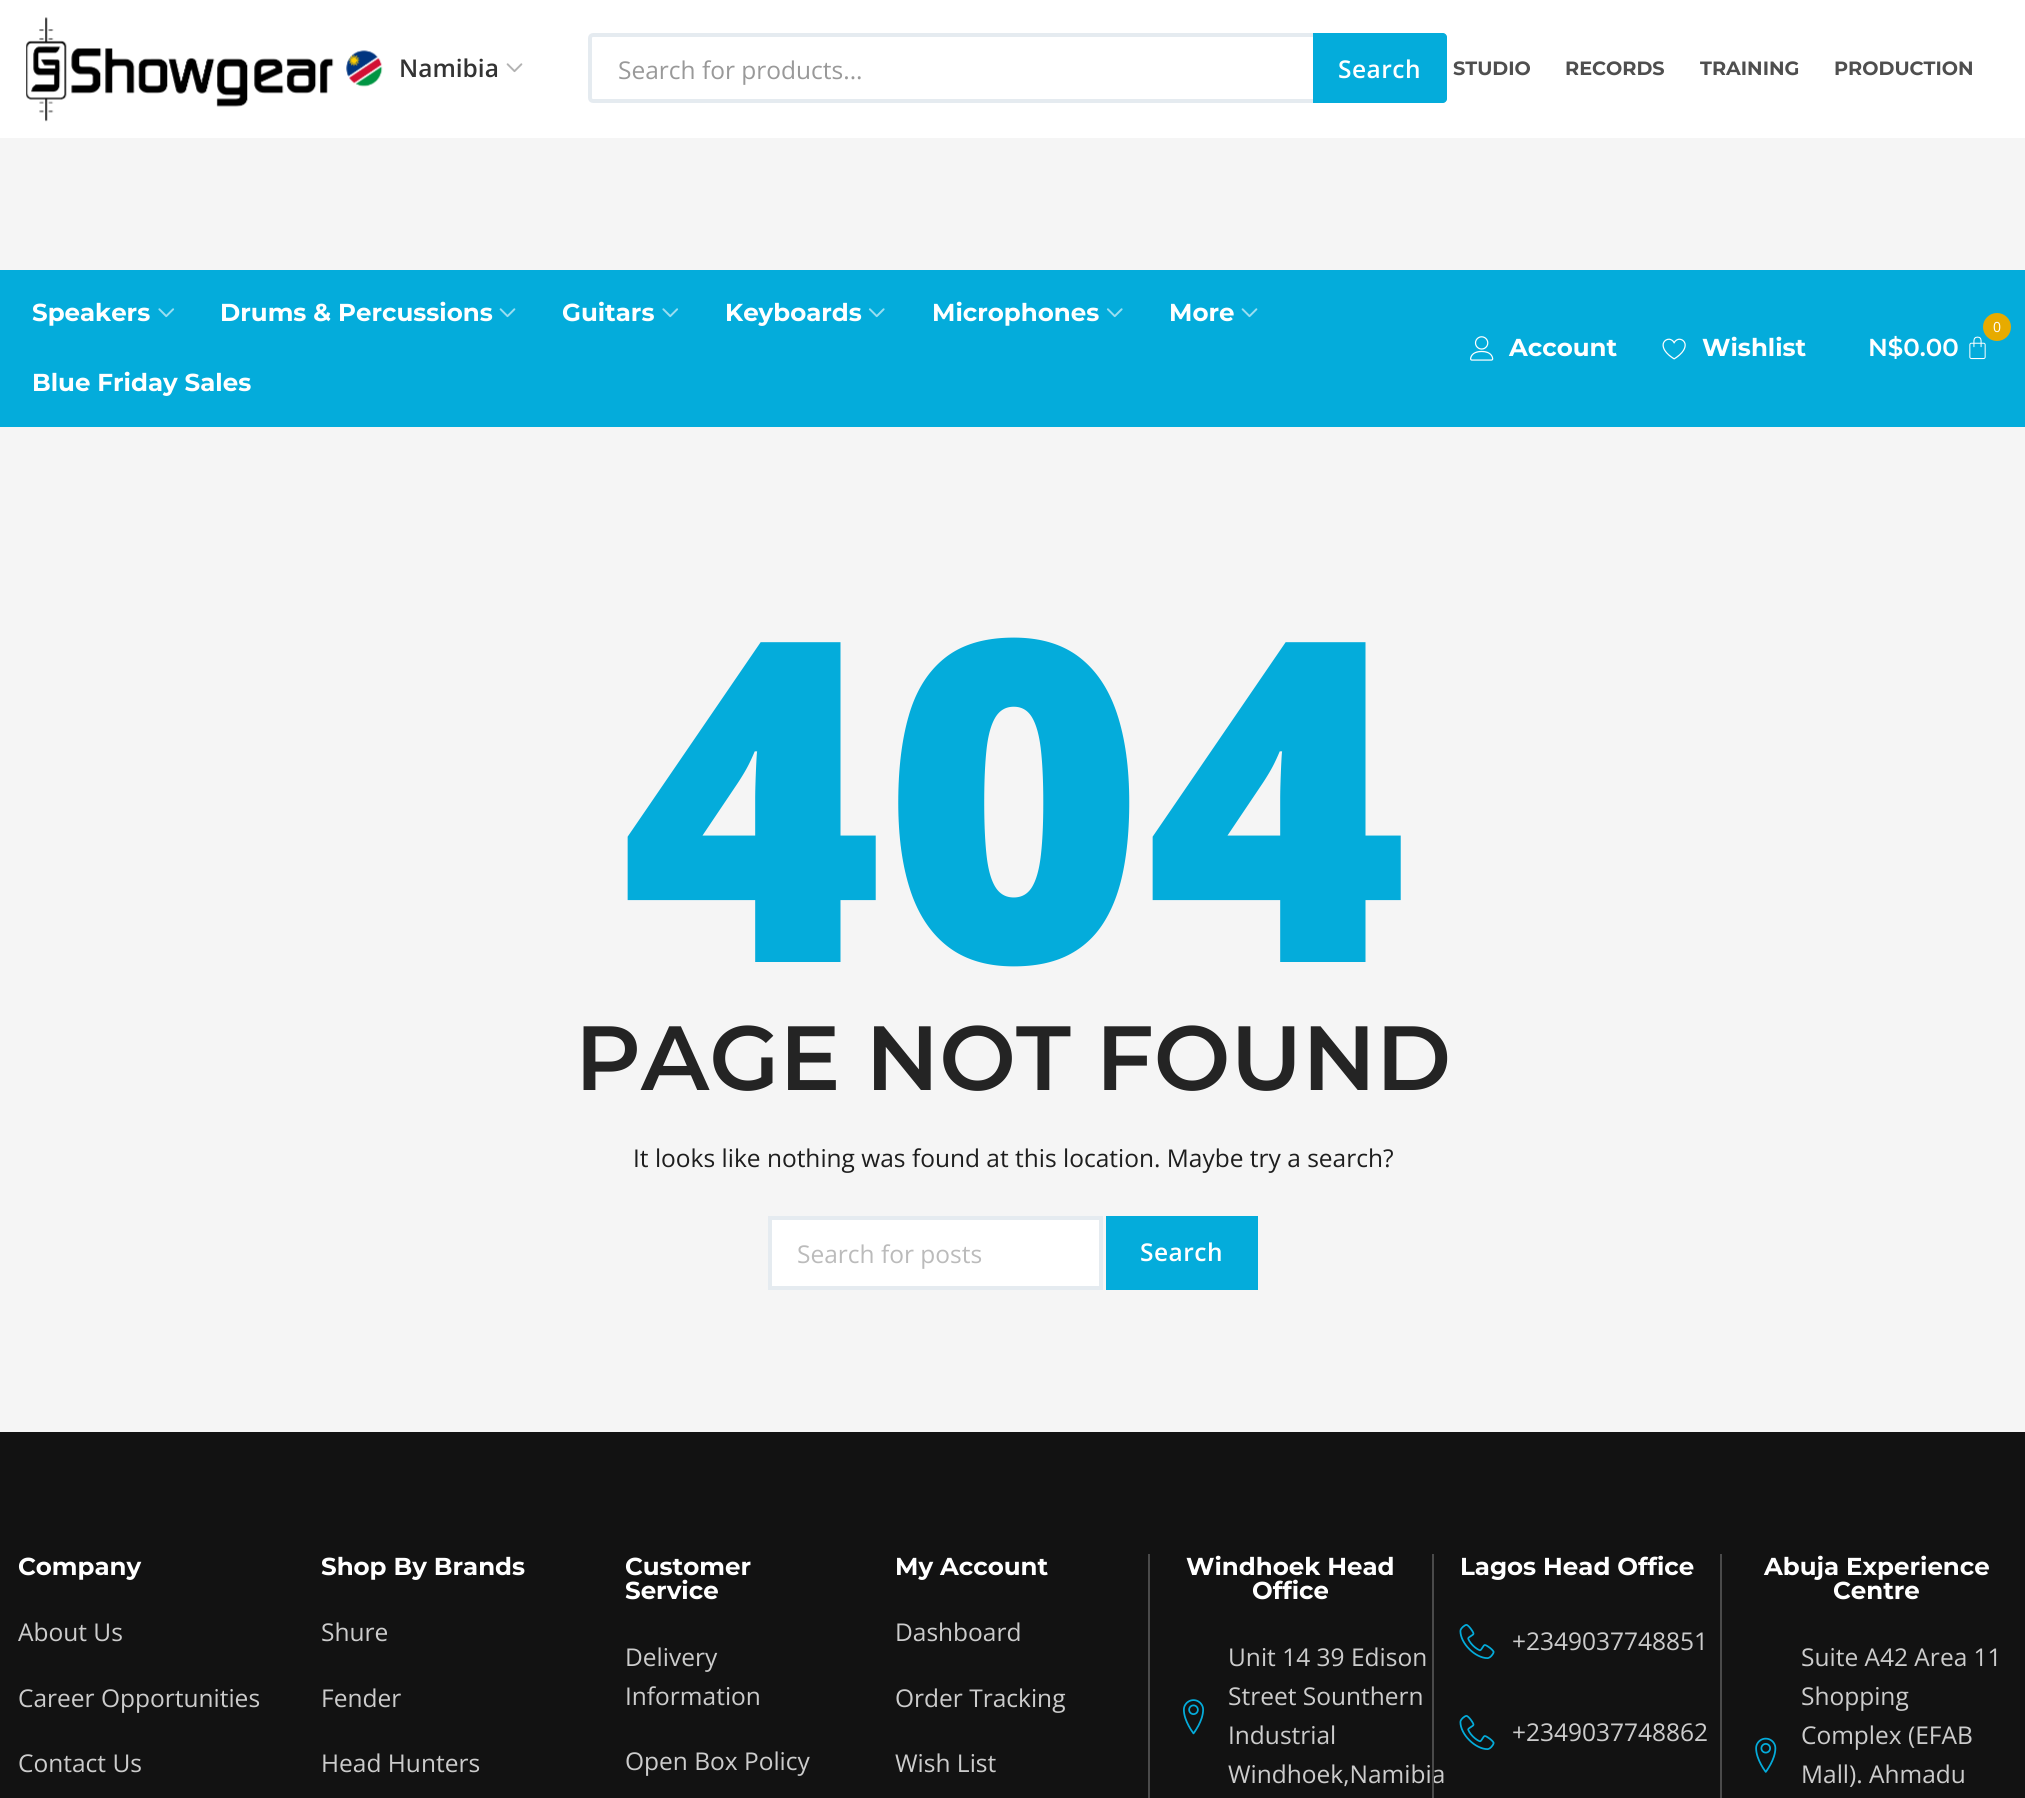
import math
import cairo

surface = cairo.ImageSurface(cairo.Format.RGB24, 2025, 1798)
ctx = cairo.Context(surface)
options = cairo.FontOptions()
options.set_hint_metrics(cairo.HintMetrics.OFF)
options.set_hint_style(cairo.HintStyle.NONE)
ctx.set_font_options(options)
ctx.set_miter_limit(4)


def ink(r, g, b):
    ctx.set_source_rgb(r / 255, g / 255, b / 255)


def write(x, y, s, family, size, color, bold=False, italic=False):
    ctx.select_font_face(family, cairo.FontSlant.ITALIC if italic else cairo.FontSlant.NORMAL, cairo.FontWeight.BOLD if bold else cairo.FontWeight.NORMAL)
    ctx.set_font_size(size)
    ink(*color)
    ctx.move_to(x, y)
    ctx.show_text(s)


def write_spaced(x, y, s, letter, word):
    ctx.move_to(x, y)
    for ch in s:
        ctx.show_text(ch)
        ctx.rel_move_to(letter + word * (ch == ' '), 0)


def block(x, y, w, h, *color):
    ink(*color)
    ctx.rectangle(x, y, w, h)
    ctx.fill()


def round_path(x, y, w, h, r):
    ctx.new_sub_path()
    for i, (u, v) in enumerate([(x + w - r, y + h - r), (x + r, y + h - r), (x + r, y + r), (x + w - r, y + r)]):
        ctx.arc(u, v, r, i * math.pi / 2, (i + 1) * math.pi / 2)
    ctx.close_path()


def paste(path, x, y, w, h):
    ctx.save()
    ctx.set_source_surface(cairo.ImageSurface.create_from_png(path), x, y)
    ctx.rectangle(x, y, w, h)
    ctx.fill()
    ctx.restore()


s1 = dict(family="Open Sans SemiBold", size=24.5, color=(51, 51, 51))
s2 = dict(family="Open Sans", size=24.5, color=(153, 153, 153))
s3 = dict(family="Montserrat", size=19.25, color=(79, 79, 79), bold=True)
s4 = dict(family="Montserrat", size=24.5, color=(255, 255, 255), bold=True)
s5 = dict(family="Open Sans", size=14, color=(255, 255, 255))
s6 = dict(family="Montserrat SemiBold", size=24.5, color=(255, 255, 255))
s7 = dict(family="Open Sans ExtraBold", size=448, color=(4, 172, 219))
s8 = dict(family="Montserrat SemiBold", size=91, color=(36, 36, 36))
s9 = dict(family="Open Sans", size=24.5, color=(30, 30, 30))
s10 = dict(family="Open Sans", size=24.5, color=(187, 187, 187))
s11 = dict(family="Open Sans", size=24.5, color=(204, 204, 204))

ink(245, 245, 245)
ctx.paint()
block(0, 0, 2025, 138, 255, 255, 255)
paste("pic1.png", 26, 17, 308, 105)
paste("pic2.png", 346, 50, 37, 37)
write(399, 77, "Namibia", **s1)
paste("pic3.png", 506, 63, 17, 10)
round_path(590, 35, 855, 66, 3)
ink(229, 235, 240)
ctx.set_line_width(4)
ctx.stroke()
write(618, 79, "Search for products...", **s2)
ink(4, 172, 219)
ctx.new_path()
ctx.move_to(1313, 33)
ctx.line_to(1443, 33)
ctx.curve_to(1445, 33, 1447, 35, 1447, 37)
ctx.line_to(1447, 99)
ctx.curve_to(1447, 101, 1445, 103, 1443, 103)
ctx.line_to(1313, 103)
ctx.close_path()
ctx.fill()
ctx.select_font_face("Open Sans SemiBold")
ink(255, 255, 255)
write_spaced(1338, 78, "Search", 0.5, 0)
write(1453, 75, "STUDIO", **s3)
write(1565, 75, "RECORDS", **s3)
write(1700, 75, "TRAINING", **s3)
write(1834, 75, "PRODUCTION", **s3)
block(0, 270, 2025, 157, 4, 172, 219)
write(32, 321, "Speakers", **s4)
paste("pic4.png", 158, 308, 17, 10)
write(220, 321, "Drums & Percussions", **s4)
paste("pic5.png", 499, 308, 17, 10)
write(562, 321, "Guitars", **s4)
paste("pic4.png", 662, 308, 17, 10)
write(725, 321, "Keyboards", **s4)
paste("pic6.png", 868, 308, 17, 10)
write(932, 321, "Microphones", **s4)
paste("pic6.png", 1106, 308, 17, 10)
write(1169, 321, "More", **s4)
paste("pic5.png", 1241, 308, 17, 10)
write(32, 391, "Blue Friday Sales", **s4)
paste("pic7.png", 1470, 336, 24, 25)
write(1509, 356, "Account", **s4)
paste("pic8.png", 1662, 338, 24, 22)
write(1702, 356, "Wishlist", **s4)
paste("pic9.png", 1969, 336, 17, 24)
ink(231, 171, 0)
ctx.arc(1997, 327, 14, 0, 2 * math.pi)
ctx.fill()
write(1993, 332, "0", **s5)
write(1868, 356, "N$0.00", **s6)
write(620, 962, "404", **s7)
write(575, 1090, "PAGE NOT FOUND", **s8)
write(633, 1167, "It looks like nothing was found at this location. Maybe try a search?", **s9)
ink(255, 255, 255)
ctx.rectangle(770, 1218, 331, 70)
ctx.fill_preserve()
ink(229, 235, 240)
ctx.stroke()
write(797, 1263, "Search for posts", **s10)
block(1106, 1216, 152, 74, 4, 172, 219)
ctx.select_font_face("Open Sans SemiBold")
ink(255, 255, 255)
write_spaced(1140, 1261, "Search", 0.5, 0)
block(0, 1432, 2025, 366, 18, 18, 18)
write(18, 1575, "Company", **s4)
write(18, 1641, "About Us", **s11)
write(18, 1707, "Career Opportunities", **s11)
write(18, 1772, "Contact Us", **s11)
write(321, 1575, "Shop By Brands", **s4)
write(321, 1641, "Shure", **s11)
write(321, 1707, "Fender", **s11)
write(321, 1772, "Head Hunters", **s11)
write(625, 1575, "Customer", **s4)
write(625, 1599, "Service", **s4)
write(625, 1666, "Delivery", **s11)
write(625, 1705, "Information", **s11)
write(625, 1770, "Open Box Policy", **s11)
write(895, 1575, "My Account", **s4)
write(895, 1641, "Dashboard", **s11)
write(895, 1707, "Order Tracking", **s11)
write(895, 1772, "Wish List", **s11)
block(1148, 1554, 2, 244, 74, 74, 74)
write(1186, 1575, "Windhoek Head", **s4)
write(1252, 1599, "Office", **s4)
paste("pic10.png", 1183, 1699, 21, 36)
write(1228, 1666, "Unit 14 39 Edison", **s11)
write(1228, 1705, "Street Sounthern", **s11)
write(1228, 1744, "Industrial", **s11)
write(1228, 1783, "Windhoek,Namibia", **s11)
block(1432, 1554, 2, 244, 74, 74, 74)
write(1460, 1575, "Lagos Head Office", **s4)
paste("pic11.png", 1459, 1624, 36, 35)
write(1512, 1650, "+2349037748851", **s11)
paste("pic11.png", 1459, 1715, 36, 35)
write(1512, 1741, "+2349037748862", **s11)
block(1720, 1554, 2, 244, 74, 74, 74)
write(1764, 1575, "Abuja Experience", **s4)
write(1833, 1599, "Centre", **s4)
paste("pic12.png", 1755, 1737, 22, 36)
write(1801, 1666, "Suite A42 Area 11", **s11)
write(1801, 1705, "Shopping", **s11)
write(1801, 1744, "Complex (EFAB", **s11)
write(1801, 1783, "Mall). Ahmadu", **s11)
surface.write_to_png("screenshot.png")
